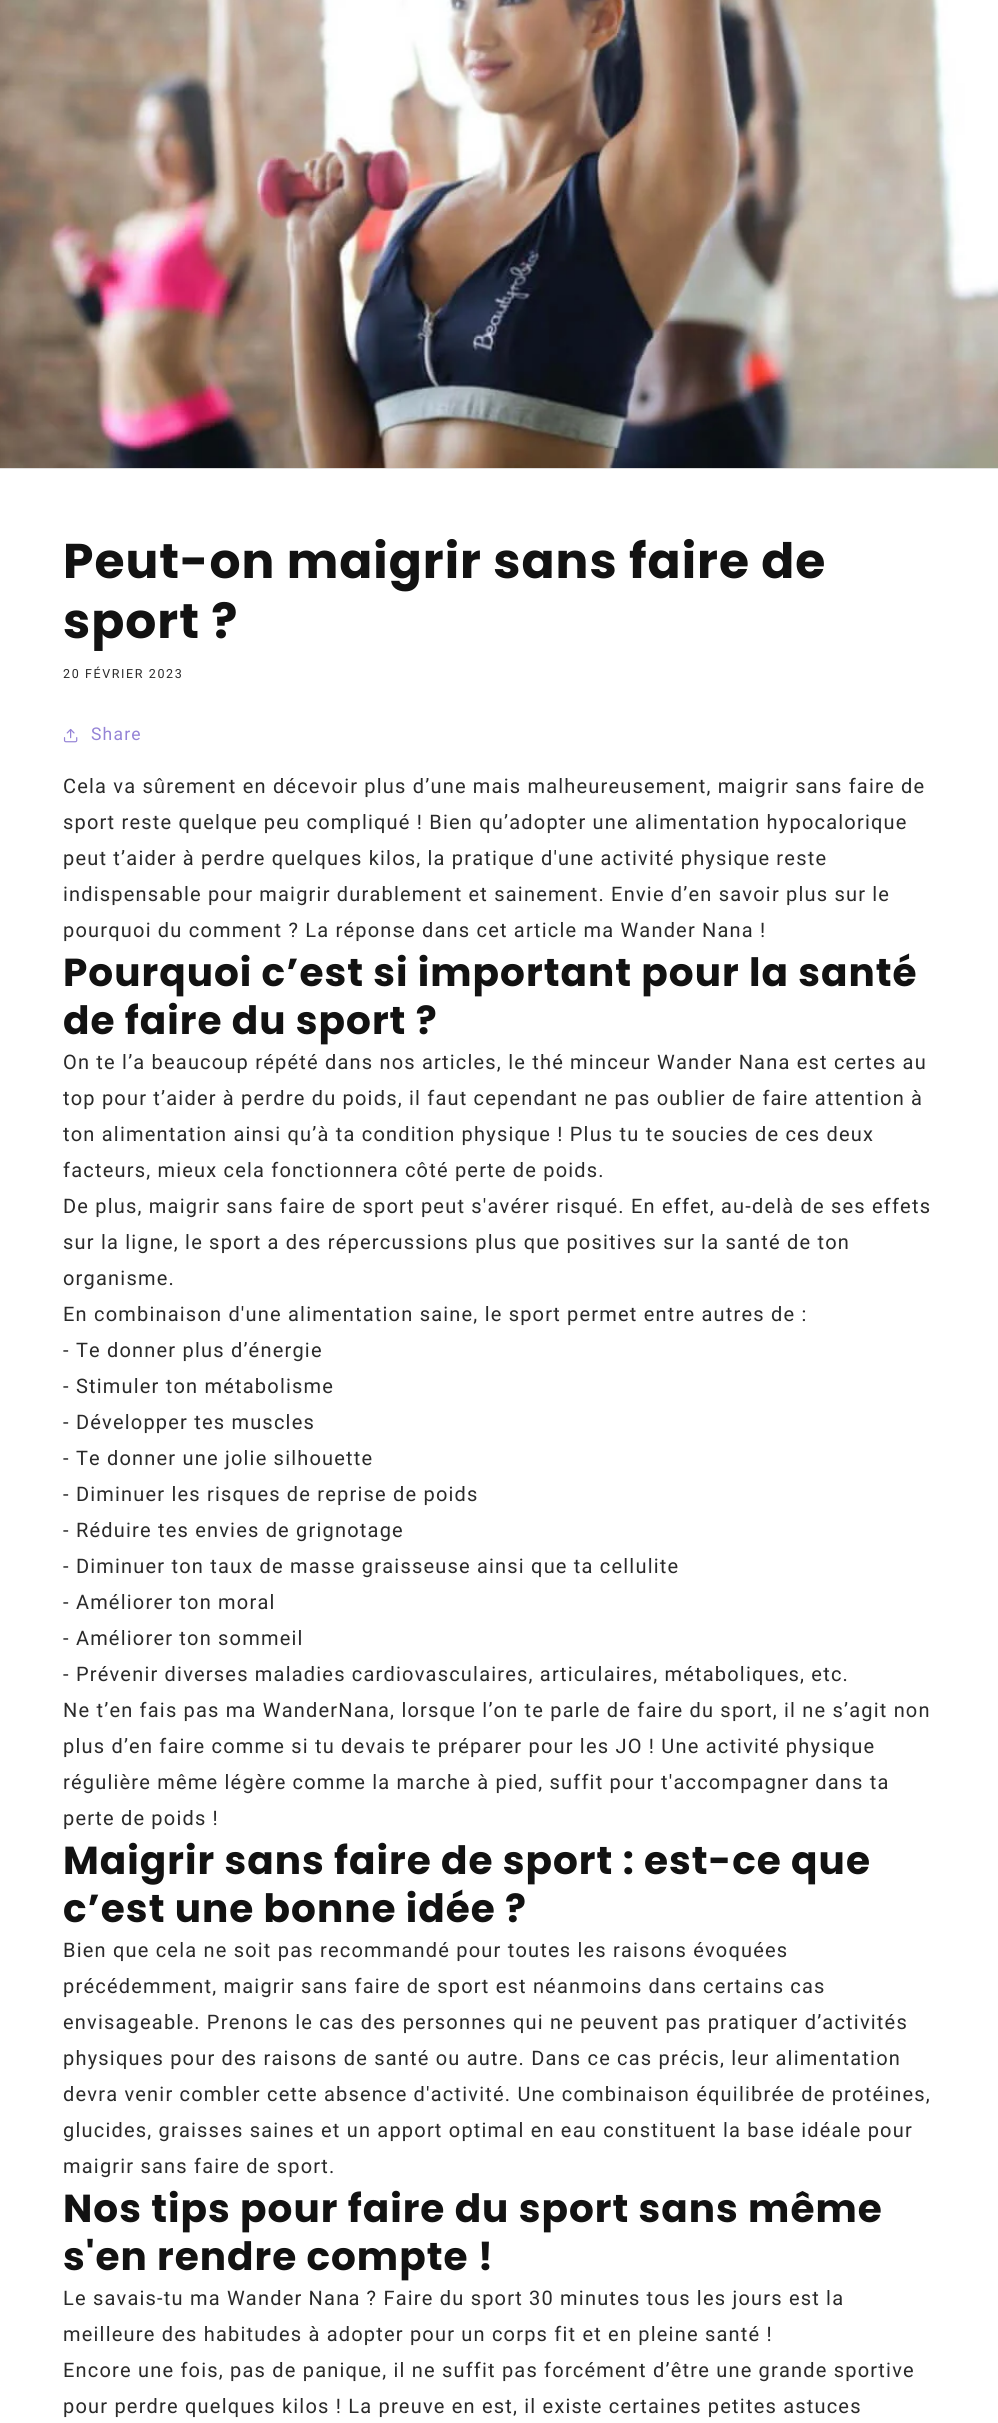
import math
import cairo

surface = cairo.ImageSurface(cairo.Format.RGB24, 998, 2423)
ctx = cairo.Context(surface)
options = cairo.FontOptions()
options.set_hint_metrics(cairo.HintMetrics.OFF)
options.set_hint_style(cairo.HintStyle.NONE)
ctx.set_font_options(options)
ctx.set_miter_limit(4)


def ink(r, g, b):
    ctx.set_source_rgb(r / 255, g / 255, b / 255)


def write_spaced(x, y, s, letter, word):
    ctx.move_to(x, y)
    for ch in s:
        ctx.show_text(ch)
        ctx.rel_move_to(letter + word * (ch == ' '), 0)


def block(x, y, w, h, *color):
    ink(*color)
    ctx.rectangle(x, y, w, h)
    ctx.fill()


def paste(path, x, y, w, h):
    ctx.save()
    ctx.set_source_surface(cairo.ImageSurface.create_from_png(path), x, y)
    ctx.rectangle(x, y, w, h)
    ctx.fill()
    ctx.restore()


ink(255, 255, 255)
ctx.paint()
block(0, 468, 998, 1, 232, 232, 232)
paste("pic1.png", 0, 0, 998, 469)
ctx.select_font_face("Poppins", cairo.FontSlant.NORMAL, cairo.FontWeight.BOLD)
ctx.set_font_size(48.75)
ink(18, 18, 18)
write_spaced(63, 578, "Peut-on maigrir sans faire de", 1, 0)
write_spaced(63, 638, "sport ?", 1, 0)
ctx.select_font_face("Roboto")
ctx.set_font_size(12.5)
ink(42, 42, 42)
write_spaced(63, 678, "20 FÉVRIER 2023", 1.6, 0)
paste("pic2.png", 63, 728, 15, 15)
ctx.set_font_size(17.5)
ink(149, 131, 214)
write_spaced(91, 740, "Share", 1.2, 0)
ctx.set_font_size(20)
ink(42, 42, 42)
write_spaced(63, 793, "Cela va sûrement en décevoir plus d’une mais malheureusement, maigrir sans faire de", 1.2, 0)
write_spaced(63, 829, "sport reste quelque peu compliqué ! Bien qu’adopter une alimentation hypocalorique", 1.2, 0)
write_spaced(63, 865, "peut t’aider à perdre quelques kilos, la pratique d'une activité physique reste", 1.2, 0)
write_spaced(63, 901, "indispensable pour maigrir durablement et sainement. Envie d’en savoir plus sur le", 1.2, 0)
write_spaced(63, 937, "pourquoi du comment ? La réponse dans cet article ma Wander Nana !", 1.2, 0)
ctx.select_font_face("Poppins", cairo.FontSlant.NORMAL, cairo.FontWeight.BOLD)
ctx.set_font_size(39)
ink(18, 18, 18)
write_spaced(63, 986, "Pourquoi c’est si important pour la santé", 1, 0)
write_spaced(63, 1034, "de faire du sport ?", 1, 0)
ctx.select_font_face("Roboto")
ctx.set_font_size(20)
ink(42, 42, 42)
write_spaced(63, 1069, "On te l’a beaucoup répété dans nos articles, le thé minceur Wander Nana est certes au", 1.2, 0)
write_spaced(63, 1105, "top pour t’aider à perdre du poids, il faut cependant ne pas oublier de faire attention à", 1.2, 0)
write_spaced(63, 1141, "ton alimentation ainsi qu’à ta condition physique ! Plus tu te soucies de ces deux", 1.2, 0)
write_spaced(63, 1177, "facteurs, mieux cela fonctionnera côté perte de poids.", 1.2, 0)
write_spaced(63, 1213, "De plus, maigrir sans faire de sport peut s'avérer risqué. En effet, au-delà de ses effets", 1.2, 0)
write_spaced(63, 1249, "sur la ligne, le sport a des répercussions plus que positives sur la santé de ton", 1.2, 0)
write_spaced(63, 1285, "organisme.", 1.2, 0)
write_spaced(63, 1321, "En combinaison d'une alimentation saine, le sport permet entre autres de :", 1.2, 0)
write_spaced(63, 1357, "- Te donner plus d’énergie", 1.2, 0)
write_spaced(63, 1393, "- Stimuler ton métabolisme", 1.2, 0)
write_spaced(63, 1429, "- Développer tes muscles", 1.2, 0)
write_spaced(63, 1465, "- Te donner une jolie silhouette", 1.2, 0)
write_spaced(63, 1501, "- Diminuer les risques de reprise de poids", 1.2, 0)
write_spaced(63, 1537, "- Réduire tes envies de grignotage", 1.2, 0)
write_spaced(63, 1573, "- Diminuer ton taux de masse graisseuse ainsi que ta cellulite", 1.2, 0)
write_spaced(63, 1609, "- Améliorer ton moral", 1.2, 0)
write_spaced(63, 1645, "- Améliorer ton sommeil", 1.2, 0)
write_spaced(63, 1681, "- Prévenir diverses maladies cardiovasculaires, articulaires, métaboliques, etc.", 1.2, 0)
write_spaced(63, 1717, "Ne t’en fais pas ma WanderNana, lorsque l’on te parle de faire du sport, il ne s’agit non", 1.2, 0)
write_spaced(63, 1753, "plus d’en faire comme si tu devais te préparer pour les JO ! Une activité physique", 1.2, 0)
write_spaced(63, 1789, "régulière même légère comme la marche à pied, suffit pour t'accompagner dans ta", 1.2, 0)
write_spaced(63, 1825, "perte de poids !", 1.2, 0)
ctx.select_font_face("Poppins", cairo.FontSlant.NORMAL, cairo.FontWeight.BOLD)
ctx.set_font_size(39)
ink(18, 18, 18)
write_spaced(63, 1874, "Maigrir sans faire de sport : est-ce que", 1, 0)
write_spaced(63, 1922, "c’est une bonne idée ?", 1, 0)
ctx.select_font_face("Roboto")
ctx.set_font_size(20)
ink(42, 42, 42)
write_spaced(63, 1957, "Bien que cela ne soit pas recommandé pour toutes les raisons évoquées", 1.2, 0)
write_spaced(63, 1993, "précédemment, maigrir sans faire de sport est néanmoins dans certains cas", 1.2, 0)
write_spaced(63, 2029, "envisageable. Prenons le cas des personnes qui ne peuvent pas pratiquer d’activités", 1.2, 0)
write_spaced(63, 2065, "physiques pour des raisons de santé ou autre. Dans ce cas précis, leur alimentation", 1.2, 0)
write_spaced(63, 2101, "devra venir combler cette absence d'activité. Une combinaison équilibrée de protéines,", 1.2, 0)
write_spaced(63, 2137, "glucides, graisses saines et un apport optimal en eau constituent la base idéale pour", 1.2, 0)
write_spaced(63, 2173, "maigrir sans faire de sport.", 1.2, 0)
ctx.select_font_face("Poppins", cairo.FontSlant.NORMAL, cairo.FontWeight.BOLD)
ctx.set_font_size(39)
ink(18, 18, 18)
write_spaced(63, 2222, "Nos tips pour faire du sport sans même", 1, 0)
write_spaced(63, 2270, "s'en rendre compte !", 1, 0)
ctx.select_font_face("Roboto")
ctx.set_font_size(20)
ink(42, 42, 42)
write_spaced(63, 2305, "Le savais-tu ma Wander Nana ? Faire du sport 30 minutes tous les jours est la", 1.2, 0)
write_spaced(63, 2341, "meilleure des habitudes à adopter pour un corps fit et en pleine santé !", 1.2, 0)
write_spaced(63, 2377, "Encore une fois, pas de panique, il ne suffit pas forcément d’être une grande sportive", 1.2, 0)
write_spaced(63, 2413, "pour perdre quelques kilos ! La preuve en est, il existe certaines petites astuces", 1.2, 0)
surface.write_to_png("screenshot.png")
